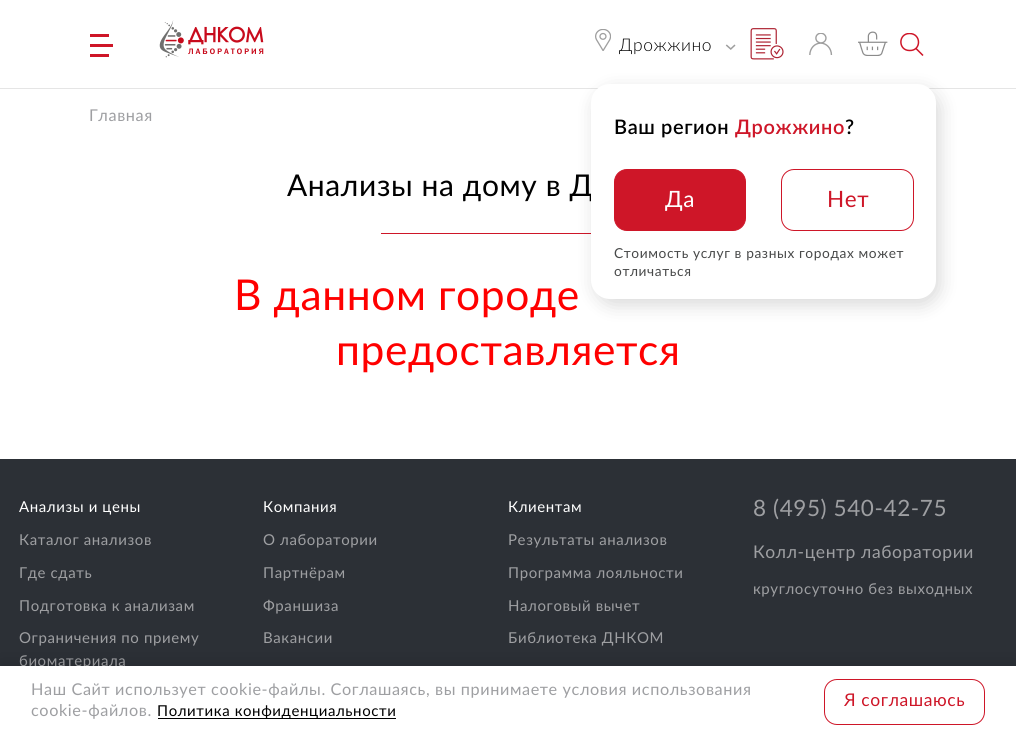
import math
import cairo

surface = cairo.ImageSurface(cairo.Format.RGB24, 1016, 737)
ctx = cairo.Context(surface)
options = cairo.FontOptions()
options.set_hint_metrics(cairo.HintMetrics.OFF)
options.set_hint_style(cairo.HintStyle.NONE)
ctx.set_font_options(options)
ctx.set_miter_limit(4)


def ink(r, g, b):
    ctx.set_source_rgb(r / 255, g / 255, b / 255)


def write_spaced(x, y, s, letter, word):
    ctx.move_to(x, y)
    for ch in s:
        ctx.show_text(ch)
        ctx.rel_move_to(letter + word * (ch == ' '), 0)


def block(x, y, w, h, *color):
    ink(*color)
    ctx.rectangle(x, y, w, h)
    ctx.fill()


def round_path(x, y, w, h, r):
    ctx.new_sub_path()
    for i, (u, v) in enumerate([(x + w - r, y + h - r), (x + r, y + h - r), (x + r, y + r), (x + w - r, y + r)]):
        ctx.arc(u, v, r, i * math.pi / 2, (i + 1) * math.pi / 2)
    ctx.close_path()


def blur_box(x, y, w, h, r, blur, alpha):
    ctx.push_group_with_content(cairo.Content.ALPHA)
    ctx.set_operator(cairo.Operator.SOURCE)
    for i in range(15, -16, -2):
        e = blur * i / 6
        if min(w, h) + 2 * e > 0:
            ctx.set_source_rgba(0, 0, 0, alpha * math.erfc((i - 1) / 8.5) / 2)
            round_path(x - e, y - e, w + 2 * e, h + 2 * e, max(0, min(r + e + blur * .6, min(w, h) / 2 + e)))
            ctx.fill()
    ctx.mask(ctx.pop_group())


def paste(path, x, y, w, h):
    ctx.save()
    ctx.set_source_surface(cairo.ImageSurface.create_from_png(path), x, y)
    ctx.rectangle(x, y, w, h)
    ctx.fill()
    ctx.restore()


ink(255, 255, 255)
ctx.paint()
ctx.select_font_face("Lato")
ctx.set_font_size(16.25)
ink(158, 159, 162)
write_spaced(89, 121, "Главная", 0.6, 0)
block(0, 88, 1016, 1, 229, 229, 229)
block(90, 34, 19, 3, 206, 22, 40)
block(90, 44, 23, 3, 206, 22, 40)
block(90, 54, 19, 3, 206, 22, 40)
paste("pic1.png", 159, 20, 105, 38)
paste("pic2.png", 750, 28, 34, 32)
paste("pic3.png", 809, 33, 24, 22)
paste("pic4.png", 858, 31, 30, 25)
ctx.save()
ctx.rectangle(900, 33, 24, 23)
ctx.clip()
ctx.new_path()
ctx.move_to(909.5, 33.5)
ctx.curve_to(921.5, 33.5, 921.5, 51, 909.5, 50.5)
ctx.curve_to(898, 50.5, 898, 33.5, 909.5, 33.5)
ctx.close_path()
ctx.move_to(915.5, 48)
ctx.line_to(923, 55.5)
ctx.set_line_width(1.5)
ctx.stroke()
ctx.restore()
paste("pic5.png", 595, 29, 16, 22)
ctx.select_font_face("Lato Light")
ctx.set_font_size(17.5)
ink(0, 0, 0)
write_spaced(619, 51, "Дрожжино", 0.6, 0)
paste("pic6.png", 725, 44, 11, 6)
block(381, 233, 210, 1, 206, 22, 40)
ink(0, 0, 0)
blur_box(595, 90, 345, 215, 19, 9.5, 0.15)
ctx.select_font_face("Lato")
ctx.set_font_size(30)
ink(0, 0, 0)
write_spaced(287, 196, "Анализы на дому в Д", 0.6, 0)
ink(255, 255, 255)
round_path(591, 84, 345, 215, 19)
ctx.fill()
ctx.select_font_face("Lato SemiBold")
ctx.set_font_size(20)
ink(0, 0, 0)
write_spaced(614, 134, "Ваш регион", 0.6, 0)
ink(206, 22, 40)
write_spaced(735, 134, "Дрожжино", 0.6, 0)
ink(0, 0, 0)
write_spaced(845, 134, "?", 0.6, 0)
ink(206, 22, 40)
round_path(614.5, 169.5, 131, 61, 12.5)
ctx.fill_preserve()
ctx.set_line_width(1)
ctx.stroke()
ctx.select_font_face("Lato")
ctx.set_font_size(22.5)
ink(255, 255, 255)
write_spaced(665, 207, "Да", 0.6, 0)
round_path(781.5, 169.5, 132, 61, 12.5)
ink(206, 22, 40)
ctx.stroke()
write_spaced(827, 207, "Нет", 0.6, 0)
ctx.set_font_size(13.75)
ink(72, 73, 73)
write_spaced(614, 258, "Стоимость услуг в разных городах может", 0.6, 0)
write_spaced(614, 276, "отличаться", 0.6, 0)
ctx.set_font_size(42.5)
ink(255, 0, 0)
write_spaced(234, 310, "В данном городе", 0.6, 0)
write_spaced(336, 365, "предоставляется", 0.6, 0)
block(0, 459, 1016, 207, 44, 48, 54)
ctx.set_font_size(15)
ink(255, 255, 255)
write_spaced(19, 512, "Анализы и цены", 0.6, 0)
ink(158, 159, 162)
write_spaced(19, 545, "Каталог анализов", 0.6, 0)
write_spaced(19, 578, "Где сдать", 0.6, 0)
write_spaced(19, 611, "Подготовка к анализам", 0.6, 0)
write_spaced(19, 643, "Ограничения по приему", 0.6, 0)
write_spaced(19, 666, "биоматериала", 0.6, 0)
ink(255, 255, 255)
write_spaced(263, 512, "Компания", 0.6, 0)
ink(158, 159, 162)
write_spaced(263, 545, "О лаборатории", 0.6, 0)
write_spaced(263, 578, "Партнёрам", 0.6, 0)
write_spaced(263, 611, "Франшиза", 0.6, 0)
write_spaced(263, 643, "Вакансии", 0.6, 0)
ink(255, 255, 255)
write_spaced(508, 512, "Клиентам", 0.6, 0)
ink(158, 159, 162)
write_spaced(508, 545, "Результаты анализов", 0.6, 0)
write_spaced(508, 578, "Программа лояльности", 0.6, 0)
write_spaced(508, 611, "Налоговый вычет", 0.6, 0)
write_spaced(508, 643, "Библиотека ДНКОМ", 0.6, 0)
ctx.set_font_size(22.5)
write_spaced(753, 516, "8 (495) 540-42-75", 0.6, 0)
ctx.set_font_size(17.5)
write_spaced(753, 558, "Колл-центр лаборатории", 0.6, 0)
ctx.set_font_size(15)
write_spaced(753, 594, "круглосуточно без выходных", 0.6, 0)
ink(0, 0, 0)
blur_box(0, 661, 1016, 72, 0, 7.5, 0.1)
block(0, 666, 1016, 71, 255, 255, 255)
ctx.set_font_size(16.25)
ink(158, 159, 162)
write_spaced(31, 695, "Наш Сайт использует cookie-файлы. Соглашаясь, вы принимаете условия использования", 0.6, 0)
write_spaced(31, 716, "cookie-файлов.", 0.6, 0)
block(158, 718, 238, 1, 0, 0, 0)
ctx.set_font_size(15)
write_spaced(157, 716, "Политика конфиденциальности", 0.6, 0)
round_path(824.5, 679.5, 160, 45, 12.5)
ink(206, 22, 40)
ctx.stroke()
ctx.set_font_size(17.5)
write_spaced(844, 706, "Я соглашаюсь", 0.6, 0)
surface.write_to_png("screenshot.png")
